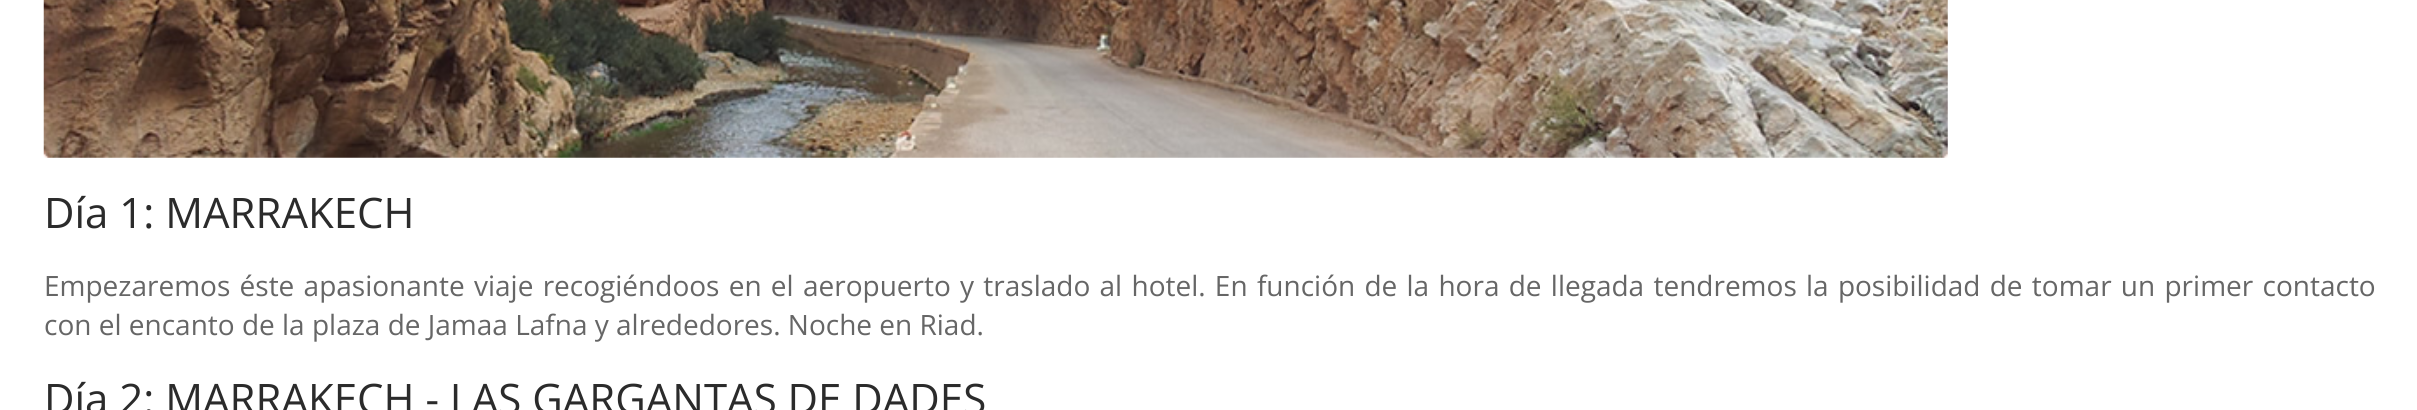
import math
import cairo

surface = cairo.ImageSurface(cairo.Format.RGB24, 2417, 410)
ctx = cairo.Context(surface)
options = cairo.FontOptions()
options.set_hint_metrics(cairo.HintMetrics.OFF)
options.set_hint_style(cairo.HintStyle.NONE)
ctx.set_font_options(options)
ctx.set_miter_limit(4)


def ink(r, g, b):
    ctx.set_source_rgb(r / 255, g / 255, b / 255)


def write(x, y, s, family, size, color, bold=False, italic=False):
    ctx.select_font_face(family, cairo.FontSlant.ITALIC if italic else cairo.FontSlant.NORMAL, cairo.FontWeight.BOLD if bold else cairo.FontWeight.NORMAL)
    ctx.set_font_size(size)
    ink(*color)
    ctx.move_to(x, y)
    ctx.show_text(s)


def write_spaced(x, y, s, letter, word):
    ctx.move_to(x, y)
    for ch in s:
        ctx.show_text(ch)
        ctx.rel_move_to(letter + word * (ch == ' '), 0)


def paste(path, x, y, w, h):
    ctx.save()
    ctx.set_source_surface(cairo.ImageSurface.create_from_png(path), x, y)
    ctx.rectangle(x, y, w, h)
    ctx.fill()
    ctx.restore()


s1 = dict(family="Open Sans", size=42, color=(43, 43, 43))
s2 = dict(family="Open Sans", size=28, color=(102, 102, 102))

ink(255, 255, 255)
ctx.paint()
paste("pic1.png", 43, 0, 1905, 158)
write(44, 228, "Día 1: MARRAKECH", **s1)
ctx.set_font_size(28)
ink(102, 102, 102)
write_spaced(44, 296, "Empezaremos éste apasionante viaje recogiéndoos en el aeropuerto y traslado al hotel. En función de la hora de llegada tendremos la posibilidad de tomar un primer contacto", 0, 2)
write(44, 335, "con el encanto de la plaza de Jamaa Lafna y alrededores. Noche en Riad.", **s2)
write(44, 414, "Día 2: MARRAKECH - LAS GARGANTAS DE DADES", **s1)
surface.write_to_png("screenshot.png")
